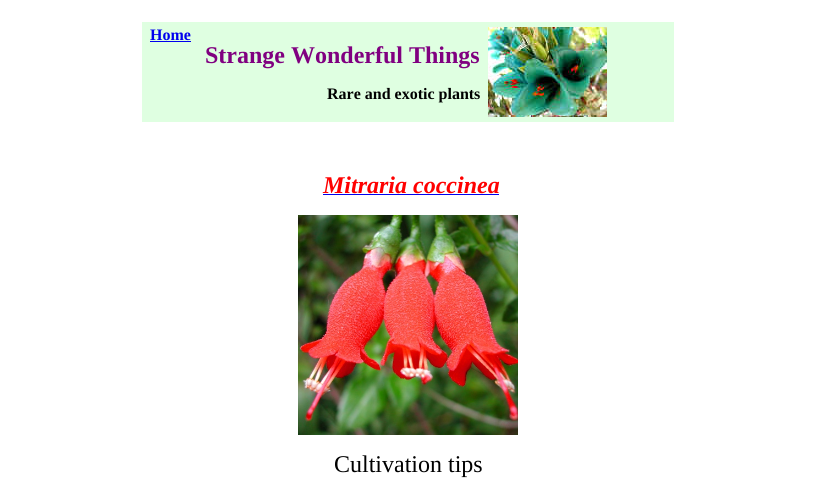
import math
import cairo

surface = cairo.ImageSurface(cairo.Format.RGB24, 816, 480)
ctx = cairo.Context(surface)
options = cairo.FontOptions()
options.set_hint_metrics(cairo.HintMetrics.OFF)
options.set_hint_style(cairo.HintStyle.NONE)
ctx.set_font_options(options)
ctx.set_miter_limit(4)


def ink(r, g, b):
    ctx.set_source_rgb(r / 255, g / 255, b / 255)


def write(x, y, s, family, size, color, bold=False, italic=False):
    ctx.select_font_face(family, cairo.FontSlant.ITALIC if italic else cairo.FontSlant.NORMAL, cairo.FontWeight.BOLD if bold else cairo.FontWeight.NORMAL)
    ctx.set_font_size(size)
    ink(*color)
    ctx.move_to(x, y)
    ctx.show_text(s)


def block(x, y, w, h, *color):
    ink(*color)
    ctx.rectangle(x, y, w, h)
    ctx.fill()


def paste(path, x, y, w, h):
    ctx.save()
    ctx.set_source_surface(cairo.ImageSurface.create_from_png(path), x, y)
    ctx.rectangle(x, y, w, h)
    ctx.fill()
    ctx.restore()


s1 = dict(family="Liberation Serif", size=16, color=(0, 0, 238), bold=True)
s2 = dict(family="Liberation Serif", size=24, color=(128, 0, 128), bold=True)
s3 = dict(family="Liberation Serif", size=16, color=(0, 0, 0), bold=True)
s4 = dict(family="Liberation Serif", size=24, color=(255, 0, 0), bold=True, italic=True)
s5 = dict(family="Liberation Serif", size=24, color=(0, 0, 0))

ink(255, 255, 255)
ctx.paint()
block(142, 22, 532, 100, 223, 255, 225)
write(150, 40, "Home", **s1)
block(150, 41, 41, 1, 0, 0, 238)
paste("pic1.png", 488, 27, 119, 90)
write(205, 63, "Strange Wonderful Things", **s2)
write(327, 99, "Rare and exotic plants", **s3)
write(323, 193, "Mitraria coccinea", **s4)
block(323, 194, 176, 1, 0, 0, 238)
paste("pic2.png", 298, 215, 220, 220)
write(334, 472, "Cultivation tips", **s5)
surface.write_to_png("screenshot.png")
